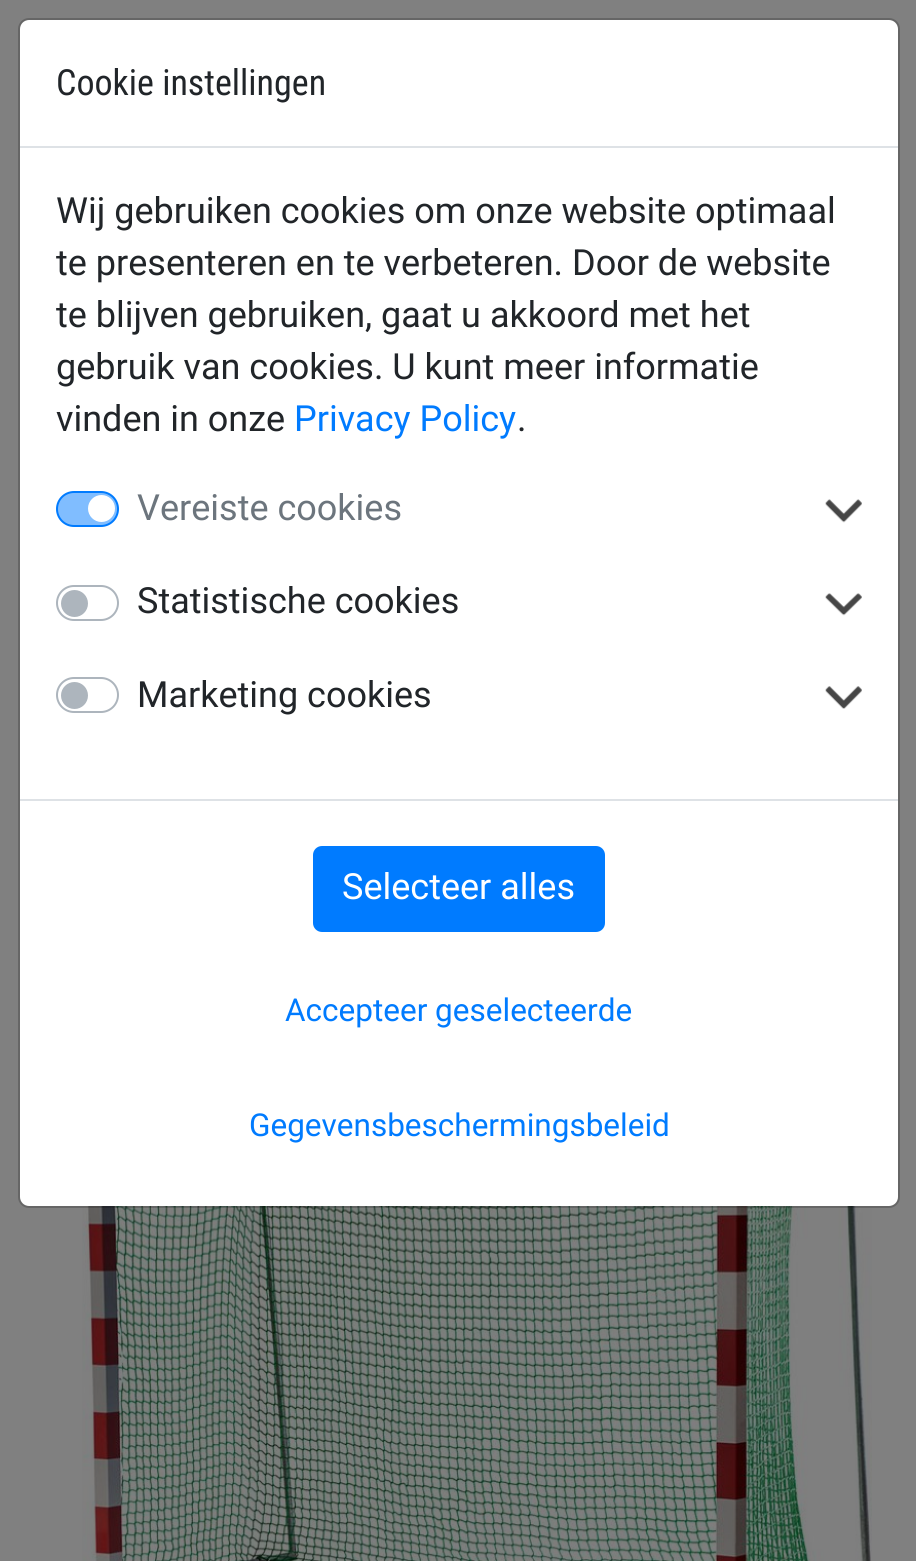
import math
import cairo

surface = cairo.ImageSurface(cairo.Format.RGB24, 916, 1561)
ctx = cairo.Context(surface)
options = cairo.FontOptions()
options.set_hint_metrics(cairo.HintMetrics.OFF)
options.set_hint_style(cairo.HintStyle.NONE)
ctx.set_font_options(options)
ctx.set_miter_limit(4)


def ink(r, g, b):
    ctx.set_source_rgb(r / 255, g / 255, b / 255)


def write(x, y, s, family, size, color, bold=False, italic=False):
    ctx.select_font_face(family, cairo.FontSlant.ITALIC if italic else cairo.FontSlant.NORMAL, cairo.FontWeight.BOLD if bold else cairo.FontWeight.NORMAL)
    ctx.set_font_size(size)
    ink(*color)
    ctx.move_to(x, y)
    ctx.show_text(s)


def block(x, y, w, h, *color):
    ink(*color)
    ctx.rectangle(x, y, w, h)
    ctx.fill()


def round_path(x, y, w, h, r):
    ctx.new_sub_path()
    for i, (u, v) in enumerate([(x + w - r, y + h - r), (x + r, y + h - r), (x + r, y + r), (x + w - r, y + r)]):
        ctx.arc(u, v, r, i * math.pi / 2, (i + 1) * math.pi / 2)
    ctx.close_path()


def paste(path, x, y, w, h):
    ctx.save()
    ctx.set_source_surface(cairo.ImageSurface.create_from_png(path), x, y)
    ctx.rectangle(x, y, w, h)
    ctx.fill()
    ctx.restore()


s1 = dict(family="Roboto Condensed", size=36, color=(33, 37, 41))
s2 = dict(family="Roboto", size=36, color=(33, 37, 41))
s3 = dict(family="Roboto", size=36, color=(0, 123, 255))
s4 = dict(family="Roboto", size=36, color=(108, 117, 125))
s5 = dict(family="Roboto", size=36, color=(255, 255, 255))
s6 = dict(family="Roboto", size=31.5, color=(0, 123, 255))

ink(128, 128, 128)
ctx.paint()
ink(255, 255, 255)
round_path(20, 20, 878, 1186, 9)
ctx.fill()
paste("pic4.png", 82, 1206, 790, 355)
round_path(19, 19, 880, 1188, 10)
ctx.set_source_rgba(0, 0, 0, 0.2)
ctx.stroke()
block(20, 146, 878, 2, 222, 226, 230)
write(56, 95, "Cookie instellingen", **s1)
write(56, 223, "Wij gebruiken cookies om onze website optimaal", **s2)
write(56, 275, "te presenteren en te verbeteren. Door de website", **s2)
write(56, 327, "te blijven gebruiken, gaat u akkoord met het", **s2)
write(56, 379, "gebruik van cookies. U kunt meer informatie", **s2)
write(56, 431, "vinden in onze", **s2)
write(294, 431, "Privacy Policy", **s3)
write(517, 431, ".", **s2)
ink(128, 189, 255)
round_path(57, 492, 61, 34, 17)
ctx.fill_preserve()
ink(0, 123, 255)
ctx.stroke()
write(137, 520, "Vereiste cookies", **s4)
ink(255, 255, 255)
ctx.new_path()
ctx.arc(101.5, 508.5, 13.5, 0, 2 * math.pi)
ctx.fill()
paste("pic1.png", 825, 499, 37, 24)
round_path(57, 586, 61, 34, 17)
ink(173, 181, 189)
ctx.stroke()
write(137, 613, "Statistische cookies", **s2)
ink(173, 181, 189)
ctx.new_path()
ctx.arc(74.5, 603.5, 13.5, 0, 2 * math.pi)
ctx.fill()
paste("pic2.png", 825, 593, 37, 23)
round_path(57, 678, 61, 34, 17)
ctx.stroke()
write(137, 707, "Marketing cookies", **s2)
ink(173, 181, 189)
ctx.new_path()
ctx.arc(74.5, 695.5, 13.5, 0, 2 * math.pi)
ctx.fill()
paste("pic3.png", 825, 686, 37, 23)
block(20, 799, 878, 2, 222, 226, 230)
ink(0, 123, 255)
round_path(314, 847, 290, 84, 8)
ctx.fill_preserve()
ctx.stroke()
write(342, 899, "Selecteer alles", **s5)
write(285, 1021, "Accepteer geselecteerde", **s6)
write(249, 1136, "Gegevensbeschermingsbeleid", **s6)
surface.write_to_png("screenshot.png")
